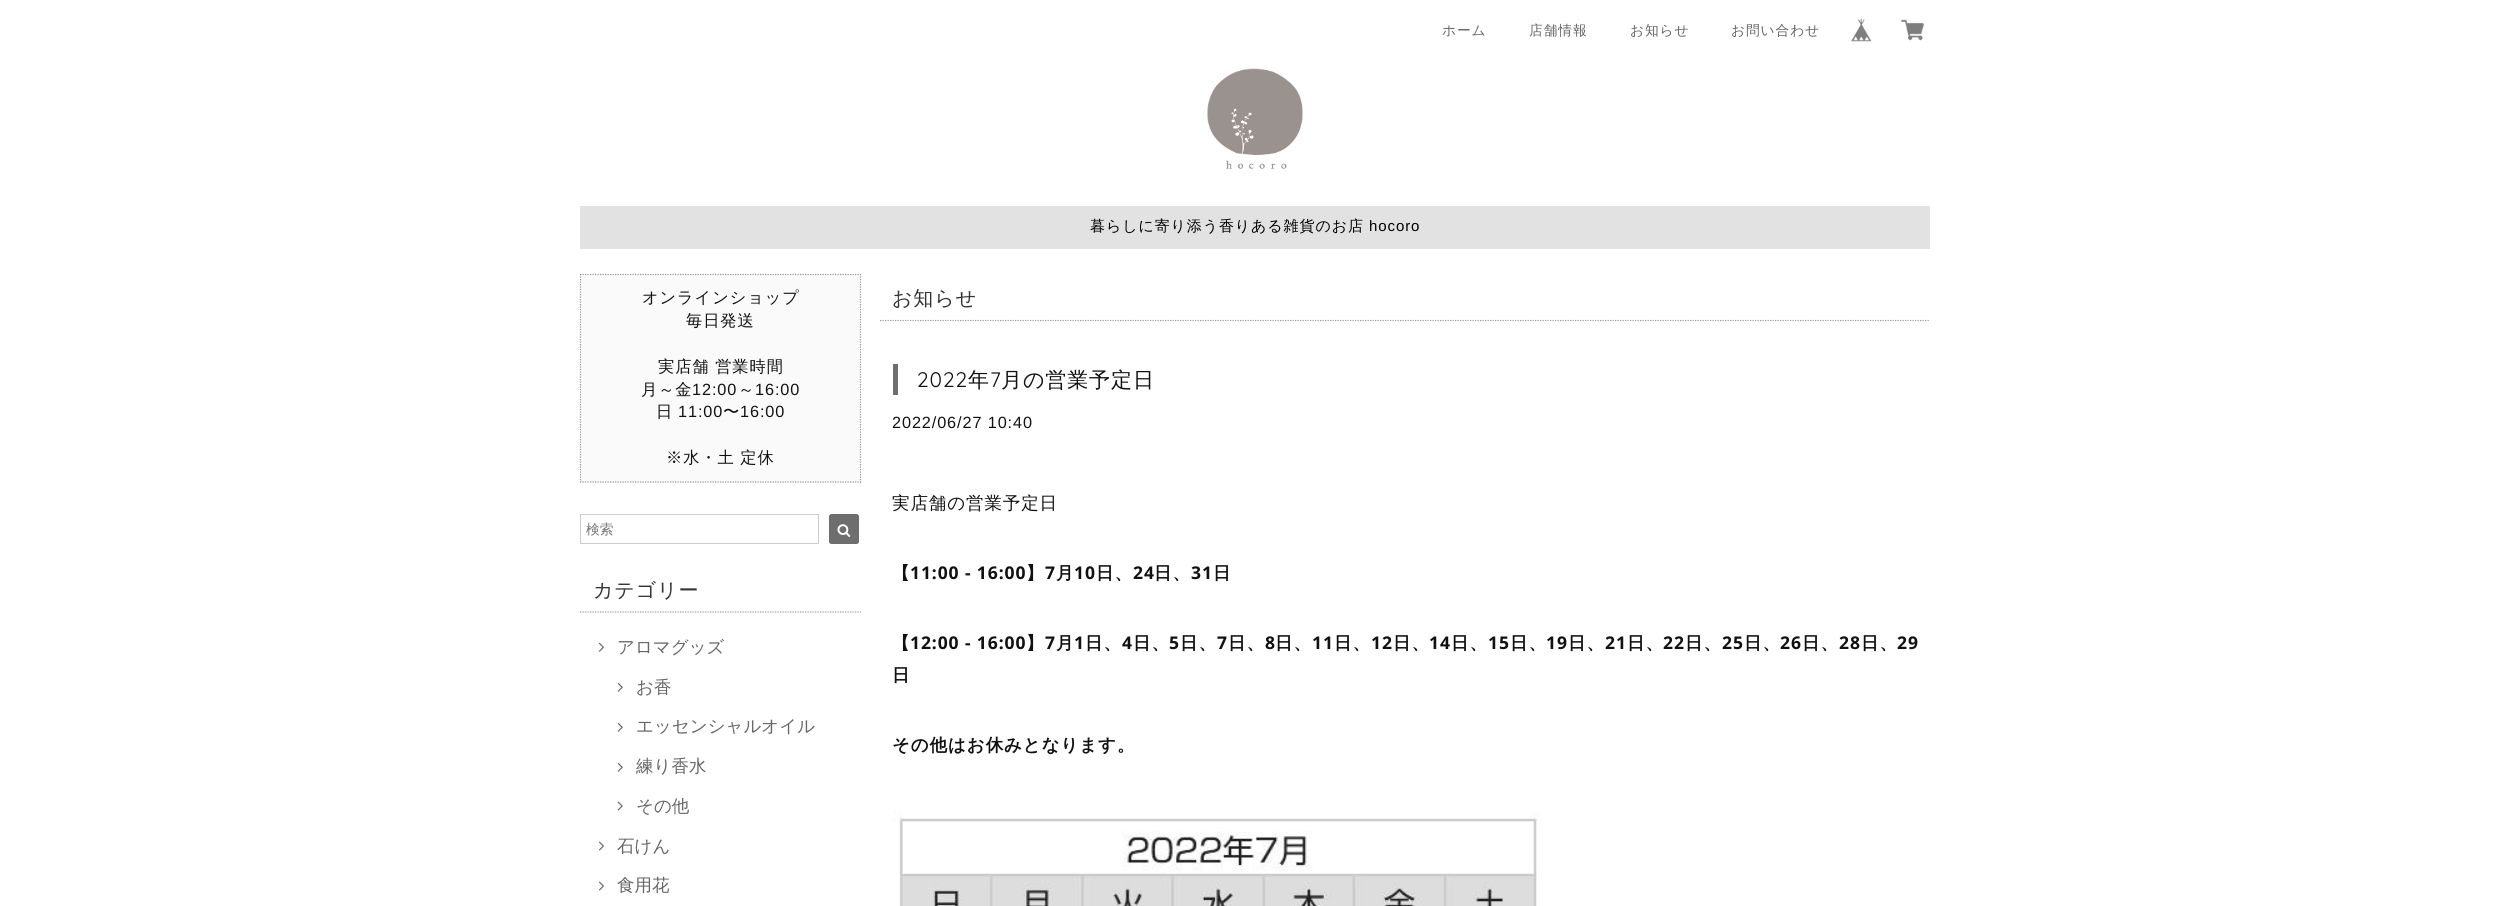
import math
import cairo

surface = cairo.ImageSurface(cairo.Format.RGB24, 2510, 906)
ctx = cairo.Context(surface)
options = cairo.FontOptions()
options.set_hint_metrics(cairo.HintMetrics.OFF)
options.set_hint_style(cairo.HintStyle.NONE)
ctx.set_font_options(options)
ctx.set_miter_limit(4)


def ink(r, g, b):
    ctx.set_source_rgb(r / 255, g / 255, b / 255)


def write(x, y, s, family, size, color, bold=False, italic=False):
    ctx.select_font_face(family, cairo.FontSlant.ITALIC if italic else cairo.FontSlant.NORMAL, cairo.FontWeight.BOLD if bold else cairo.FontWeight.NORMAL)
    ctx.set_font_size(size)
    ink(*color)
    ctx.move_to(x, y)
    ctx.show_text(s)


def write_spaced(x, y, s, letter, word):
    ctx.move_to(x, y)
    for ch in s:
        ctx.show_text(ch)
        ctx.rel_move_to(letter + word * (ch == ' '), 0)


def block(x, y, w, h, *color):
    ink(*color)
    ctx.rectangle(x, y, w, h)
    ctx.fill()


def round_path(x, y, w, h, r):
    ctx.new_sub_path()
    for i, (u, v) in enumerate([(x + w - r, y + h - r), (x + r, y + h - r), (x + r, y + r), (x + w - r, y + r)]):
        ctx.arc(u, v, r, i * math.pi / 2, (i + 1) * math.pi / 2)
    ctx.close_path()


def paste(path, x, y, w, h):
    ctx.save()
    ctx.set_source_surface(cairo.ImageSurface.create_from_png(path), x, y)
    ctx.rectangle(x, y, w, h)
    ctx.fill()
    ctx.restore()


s1 = dict(family="WenQuanYi Zen Hei Medium", size=13.75, color=(117, 117, 117))
s2 = dict(family="WenQuanYi Zen Hei Medium", size=17.5, color=(102, 102, 102))

ink(255, 255, 255)
ctx.paint()
ctx.select_font_face("WenQuanYi Zen Hei Medium")
ctx.set_font_size(13.75)
ink(102, 102, 102)
write_spaced(1442, 35, "ホーム", 0.9, 0)
write_spaced(1529, 35, "店舗情報", 0.9, 0)
write_spaced(1630, 35, "お知らせ", 0.9, 0)
write_spaced(1731, 35, "お問い合わせ", 0.9, 0)
paste("pic1.png", 1851, 18, 21, 24)
paste("pic2.png", 1901, 19, 23, 22)
paste("pic3.png", 1207, 68, 96, 101)
block(580, 206, 1350, 43, 226, 226, 226)
ctx.set_font_size(15)
ink(0, 0, 0)
write_spaced(1090, 231, "暮らしに寄り添う香りある雑貨のお店", 0.9, 0)
ctx.select_font_face("Liberation Sans")
write_spaced(1369, 231, "hocoro", 0.9, 0)
block(580, 274, 281, 209, 250, 250, 250)
ctx.new_path()
ctx.move_to(580, 274.5)
ctx.line_to(861, 274.5)
ink(153, 153, 153)
ctx.set_line_width(1.2)
ctx.set_dash([1.25, 1.25])
ctx.stroke()
ctx.new_path()
ctx.move_to(860.5, 274)
ctx.line_to(860.5, 482.5)
ctx.stroke()
ctx.new_path()
ctx.move_to(580, 482)
ctx.line_to(861, 482)
ctx.stroke()
ctx.new_path()
ctx.move_to(580.5, 274)
ctx.line_to(580.5, 482.5)
ctx.stroke()
ctx.select_font_face("WenQuanYi Zen Hei Medium")
ctx.set_font_size(16.25)
ink(17, 17, 17)
write_spaced(642, 303, "オンラインショップ", 0.9, 0)
write_spaced(686, 326, "毎日発送", 0.9, 0)
write_spaced(658, 372, "実店舗 営業時間", 0.9, 0)
write_spaced(641, 395, "月～金", 0.9, 0)
ctx.select_font_face("Liberation Sans")
write_spaced(692, 395, "12:00", 0.9, 0)
ctx.select_font_face("WenQuanYi Zen Hei Medium")
write_spaced(738, 395, "～", 0.9, 0)
ctx.select_font_face("Liberation Sans")
write_spaced(755, 395, "16:00", 0.9, 0)
ctx.select_font_face("WenQuanYi Zen Hei Medium")
write_spaced(656, 417, "日", 0.9, 0)
ctx.select_font_face("Liberation Sans")
write_spaced(678, 417, "11:00", 0.9, 0)
ctx.select_font_face("WenQuanYi Zen Hei Medium")
write_spaced(723, 417, "〜", 0.9, 0)
ctx.select_font_face("Liberation Sans")
write_spaced(740, 417, "16:00", 0.9, 0)
ctx.select_font_face("WenQuanYi Zen Hei Medium")
write_spaced(666, 463, "※水・土 定休", 0.9, 0)
ctx.rectangle(580.5, 514.5, 238, 29)
ink(204, 204, 204)
ctx.set_line_width(1)
ctx.set_dash([])
ctx.stroke()
write(586, 534, "検索", **s1)
ink(110, 110, 110)
round_path(829, 514, 30, 30, 2.5)
ctx.fill()
paste("pic4.png", 837, 524, 14, 13)
ctx.new_path()
ctx.move_to(580, 612)
ctx.line_to(861, 612)
ink(153, 153, 153)
ctx.set_line_width(1.2)
ctx.set_dash([1.25, 1.25])
ctx.stroke()
ctx.set_font_size(20)
ink(51, 51, 51)
write_spaced(593, 597, "カテゴリー", 0.9, 0)
paste("pic5.png", 598, 642, 7, 10)
write(617, 653, "アロマグッズ", **s2)
paste("pic6.png", 617, 682, 6, 10)
write(636, 693, "お香", **s2)
paste("pic6.png", 617, 722, 6, 10)
write(636, 732, "エッセンシャルオイル", **s2)
paste("pic6.png", 617, 762, 6, 10)
write(636, 772, "練り香水", **s2)
paste("pic7.png", 617, 801, 6, 10)
write(636, 812, "その他", **s2)
paste("pic8.png", 598, 841, 6, 10)
write(617, 852, "石けん", **s2)
paste("pic8.png", 598, 881, 6, 10)
write(617, 891, "食用花", **s2)
ctx.new_path()
ctx.move_to(880, 320.5)
ctx.line_to(1930, 320.5)
ink(153, 153, 153)
ctx.stroke()
ctx.set_font_size(20)
ink(51, 51, 51)
write_spaced(892, 305, "お知らせ", 0.9, 0)
block(893, 364, 5, 31, 110, 110, 110)
ctx.select_font_face("Quicksand Light")
ctx.set_font_size(21)
ink(17, 17, 17)
write_spaced(917, 387, "2022", 0.9, 0)
ctx.select_font_face("WenQuanYi Zen Hei Medium")
write_spaced(968, 387, "年", 0.9, 0)
ctx.select_font_face("Quicksand Light")
write_spaced(990, 387, "7", 0.9, 0)
ctx.select_font_face("WenQuanYi Zen Hei Medium")
write_spaced(1001, 387, "月の営業予定日", 0.9, 0)
ctx.select_font_face("Liberation Sans")
ctx.set_font_size(16.25)
write_spaced(892, 428, "2022/06/27 10:40", 0.9, 0)
ctx.select_font_face("WenQuanYi Zen Hei Medium")
ctx.set_font_size(17.5)
write_spaced(892, 509, "実店舗の営業予定日", 0.9, 0)
ctx.select_font_face("WenQuanYi Zen Hei", cairo.FontSlant.NORMAL, cairo.FontWeight.BOLD)
write_spaced(892, 579, "【", 0.9, 0)
ctx.select_font_face("Noto Sans", cairo.FontSlant.NORMAL, cairo.FontWeight.BOLD)
write_spaced(910, 579, "11:00 - 16:00", 0.9, 0)
ctx.select_font_face("WenQuanYi Zen Hei", cairo.FontSlant.NORMAL, cairo.FontWeight.BOLD)
write_spaced(1026, 579, "】", 0.9, 0)
ctx.select_font_face("Noto Sans", cairo.FontSlant.NORMAL, cairo.FontWeight.BOLD)
write_spaced(1045, 579, "7", 0.9, 0)
ctx.select_font_face("WenQuanYi Zen Hei", cairo.FontSlant.NORMAL, cairo.FontWeight.BOLD)
write_spaced(1056, 579, "月", 0.9, 0)
ctx.select_font_face("Noto Sans", cairo.FontSlant.NORMAL, cairo.FontWeight.BOLD)
write_spaced(1074, 579, "10", 0.9, 0)
ctx.select_font_face("WenQuanYi Zen Hei", cairo.FontSlant.NORMAL, cairo.FontWeight.BOLD)
write_spaced(1096, 579, "日、", 0.9, 0)
ctx.select_font_face("Noto Sans", cairo.FontSlant.NORMAL, cairo.FontWeight.BOLD)
write_spaced(1133, 579, "24", 0.9, 0)
ctx.select_font_face("WenQuanYi Zen Hei", cairo.FontSlant.NORMAL, cairo.FontWeight.BOLD)
write_spaced(1154, 579, "日、", 0.9, 0)
ctx.select_font_face("Noto Sans", cairo.FontSlant.NORMAL, cairo.FontWeight.BOLD)
write_spaced(1191, 579, "31", 0.9, 0)
ctx.select_font_face("WenQuanYi Zen Hei", cairo.FontSlant.NORMAL, cairo.FontWeight.BOLD)
write_spaced(1213, 579, "日", 0.9, 0)
write_spaced(892, 649, "【", 0.9, 0)
ctx.select_font_face("Noto Sans", cairo.FontSlant.NORMAL, cairo.FontWeight.BOLD)
write_spaced(910, 649, "12:00 - 16:00", 0.9, 0)
ctx.select_font_face("WenQuanYi Zen Hei", cairo.FontSlant.NORMAL, cairo.FontWeight.BOLD)
write_spaced(1026, 649, "】", 0.9, 0)
ctx.select_font_face("Noto Sans", cairo.FontSlant.NORMAL, cairo.FontWeight.BOLD)
write_spaced(1045, 649, "7", 0.9, 0)
ctx.select_font_face("WenQuanYi Zen Hei", cairo.FontSlant.NORMAL, cairo.FontWeight.BOLD)
write_spaced(1056, 649, "月", 0.9, 0)
ctx.select_font_face("Noto Sans", cairo.FontSlant.NORMAL, cairo.FontWeight.BOLD)
write_spaced(1074, 649, "1", 0.9, 0)
ctx.select_font_face("WenQuanYi Zen Hei", cairo.FontSlant.NORMAL, cairo.FontWeight.BOLD)
write_spaced(1085, 649, "日、", 0.9, 0)
ctx.select_font_face("Noto Sans", cairo.FontSlant.NORMAL, cairo.FontWeight.BOLD)
write_spaced(1122, 649, "4", 0.9, 0)
ctx.select_font_face("WenQuanYi Zen Hei", cairo.FontSlant.NORMAL, cairo.FontWeight.BOLD)
write_spaced(1133, 649, "日、", 0.9, 0)
ctx.select_font_face("Noto Sans", cairo.FontSlant.NORMAL, cairo.FontWeight.BOLD)
write_spaced(1169, 649, "5", 0.9, 0)
ctx.select_font_face("WenQuanYi Zen Hei", cairo.FontSlant.NORMAL, cairo.FontWeight.BOLD)
write_spaced(1180, 649, "日、", 0.9, 0)
ctx.select_font_face("Noto Sans", cairo.FontSlant.NORMAL, cairo.FontWeight.BOLD)
write_spaced(1217, 649, "7", 0.9, 0)
ctx.select_font_face("WenQuanYi Zen Hei", cairo.FontSlant.NORMAL, cairo.FontWeight.BOLD)
write_spaced(1228, 649, "日、", 0.9, 0)
ctx.select_font_face("Noto Sans", cairo.FontSlant.NORMAL, cairo.FontWeight.BOLD)
write_spaced(1265, 649, "8", 0.9, 0)
ctx.select_font_face("WenQuanYi Zen Hei", cairo.FontSlant.NORMAL, cairo.FontWeight.BOLD)
write_spaced(1275, 649, "日、", 0.9, 0)
ctx.select_font_face("Noto Sans", cairo.FontSlant.NORMAL, cairo.FontWeight.BOLD)
write_spaced(1312, 649, "11", 0.9, 0)
ctx.select_font_face("WenQuanYi Zen Hei", cairo.FontSlant.NORMAL, cairo.FontWeight.BOLD)
write_spaced(1334, 649, "日、", 0.9, 0)
ctx.select_font_face("Noto Sans", cairo.FontSlant.NORMAL, cairo.FontWeight.BOLD)
write_spaced(1371, 649, "12", 0.9, 0)
ctx.select_font_face("WenQuanYi Zen Hei", cairo.FontSlant.NORMAL, cairo.FontWeight.BOLD)
write_spaced(1393, 649, "日、", 0.9, 0)
ctx.select_font_face("Noto Sans", cairo.FontSlant.NORMAL, cairo.FontWeight.BOLD)
write_spaced(1429, 649, "14", 0.9, 0)
ctx.select_font_face("WenQuanYi Zen Hei", cairo.FontSlant.NORMAL, cairo.FontWeight.BOLD)
write_spaced(1451, 649, "日、", 0.9, 0)
ctx.select_font_face("Noto Sans", cairo.FontSlant.NORMAL, cairo.FontWeight.BOLD)
write_spaced(1488, 649, "15", 0.9, 0)
ctx.select_font_face("WenQuanYi Zen Hei", cairo.FontSlant.NORMAL, cairo.FontWeight.BOLD)
write_spaced(1510, 649, "日、", 0.9, 0)
ctx.select_font_face("Noto Sans", cairo.FontSlant.NORMAL, cairo.FontWeight.BOLD)
write_spaced(1546, 649, "19", 0.9, 0)
ctx.select_font_face("WenQuanYi Zen Hei", cairo.FontSlant.NORMAL, cairo.FontWeight.BOLD)
write_spaced(1568, 649, "日、", 0.9, 0)
ctx.select_font_face("Noto Sans", cairo.FontSlant.NORMAL, cairo.FontWeight.BOLD)
write_spaced(1605, 649, "21", 0.9, 0)
ctx.select_font_face("WenQuanYi Zen Hei", cairo.FontSlant.NORMAL, cairo.FontWeight.BOLD)
write_spaced(1627, 649, "日、", 0.9, 0)
ctx.select_font_face("Noto Sans", cairo.FontSlant.NORMAL, cairo.FontWeight.BOLD)
write_spaced(1663, 649, "22", 0.9, 0)
ctx.select_font_face("WenQuanYi Zen Hei", cairo.FontSlant.NORMAL, cairo.FontWeight.BOLD)
write_spaced(1685, 649, "日、", 0.9, 0)
ctx.select_font_face("Noto Sans", cairo.FontSlant.NORMAL, cairo.FontWeight.BOLD)
write_spaced(1722, 649, "25", 0.9, 0)
ctx.select_font_face("WenQuanYi Zen Hei", cairo.FontSlant.NORMAL, cairo.FontWeight.BOLD)
write_spaced(1744, 649, "日、", 0.9, 0)
ctx.select_font_face("Noto Sans", cairo.FontSlant.NORMAL, cairo.FontWeight.BOLD)
write_spaced(1780, 649, "26", 0.9, 0)
ctx.select_font_face("WenQuanYi Zen Hei", cairo.FontSlant.NORMAL, cairo.FontWeight.BOLD)
write_spaced(1802, 649, "日、", 0.9, 0)
ctx.select_font_face("Noto Sans", cairo.FontSlant.NORMAL, cairo.FontWeight.BOLD)
write_spaced(1839, 649, "28", 0.9, 0)
ctx.select_font_face("WenQuanYi Zen Hei", cairo.FontSlant.NORMAL, cairo.FontWeight.BOLD)
write_spaced(1861, 649, "日、", 0.9, 0)
ctx.select_font_face("Noto Sans", cairo.FontSlant.NORMAL, cairo.FontWeight.BOLD)
write_spaced(1897, 649, "29", 0.9, 0)
ctx.select_font_face("WenQuanYi Zen Hei", cairo.FontSlant.NORMAL, cairo.FontWeight.BOLD)
write_spaced(892, 681, "日", 0.9, 0)
write_spaced(892, 751, "その他はお休みとなります。", 0.9, 0)
paste("pic9.png", 894, 811, 648, 95)
surface.write_to_png("screenshot.png")
